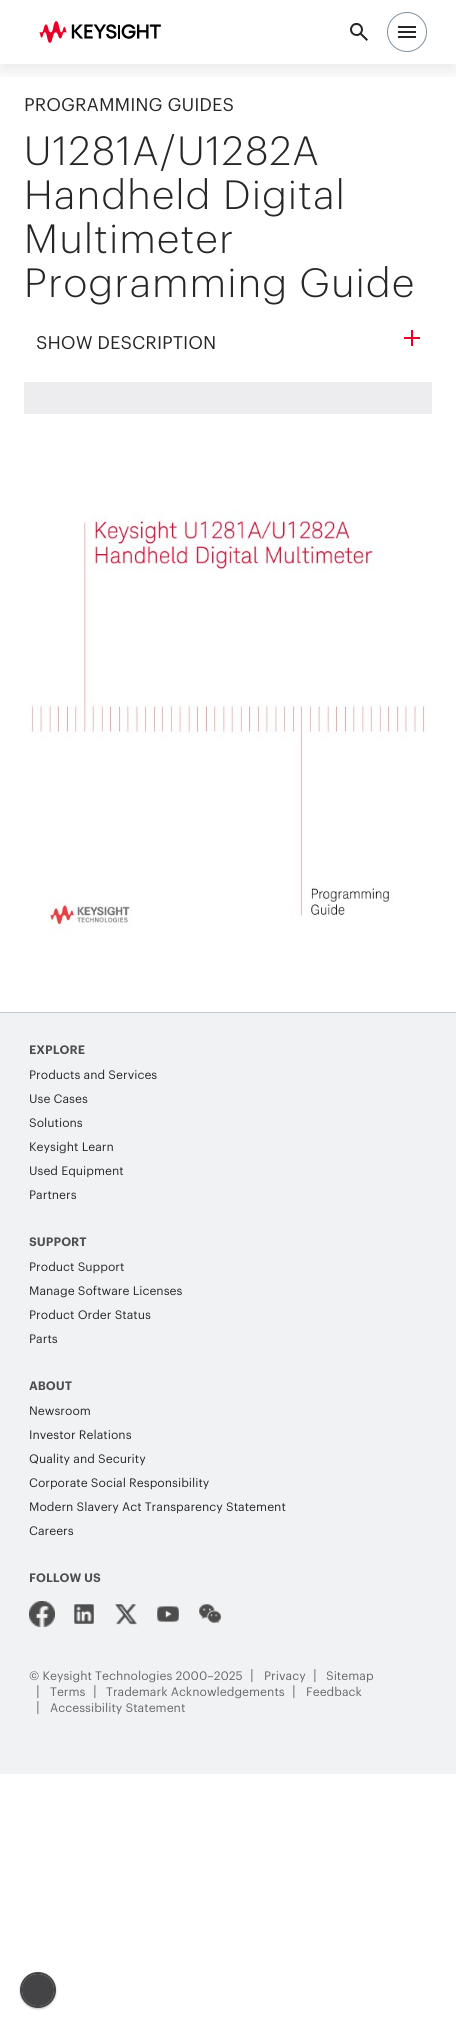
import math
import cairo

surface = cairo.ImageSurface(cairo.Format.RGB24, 456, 2028)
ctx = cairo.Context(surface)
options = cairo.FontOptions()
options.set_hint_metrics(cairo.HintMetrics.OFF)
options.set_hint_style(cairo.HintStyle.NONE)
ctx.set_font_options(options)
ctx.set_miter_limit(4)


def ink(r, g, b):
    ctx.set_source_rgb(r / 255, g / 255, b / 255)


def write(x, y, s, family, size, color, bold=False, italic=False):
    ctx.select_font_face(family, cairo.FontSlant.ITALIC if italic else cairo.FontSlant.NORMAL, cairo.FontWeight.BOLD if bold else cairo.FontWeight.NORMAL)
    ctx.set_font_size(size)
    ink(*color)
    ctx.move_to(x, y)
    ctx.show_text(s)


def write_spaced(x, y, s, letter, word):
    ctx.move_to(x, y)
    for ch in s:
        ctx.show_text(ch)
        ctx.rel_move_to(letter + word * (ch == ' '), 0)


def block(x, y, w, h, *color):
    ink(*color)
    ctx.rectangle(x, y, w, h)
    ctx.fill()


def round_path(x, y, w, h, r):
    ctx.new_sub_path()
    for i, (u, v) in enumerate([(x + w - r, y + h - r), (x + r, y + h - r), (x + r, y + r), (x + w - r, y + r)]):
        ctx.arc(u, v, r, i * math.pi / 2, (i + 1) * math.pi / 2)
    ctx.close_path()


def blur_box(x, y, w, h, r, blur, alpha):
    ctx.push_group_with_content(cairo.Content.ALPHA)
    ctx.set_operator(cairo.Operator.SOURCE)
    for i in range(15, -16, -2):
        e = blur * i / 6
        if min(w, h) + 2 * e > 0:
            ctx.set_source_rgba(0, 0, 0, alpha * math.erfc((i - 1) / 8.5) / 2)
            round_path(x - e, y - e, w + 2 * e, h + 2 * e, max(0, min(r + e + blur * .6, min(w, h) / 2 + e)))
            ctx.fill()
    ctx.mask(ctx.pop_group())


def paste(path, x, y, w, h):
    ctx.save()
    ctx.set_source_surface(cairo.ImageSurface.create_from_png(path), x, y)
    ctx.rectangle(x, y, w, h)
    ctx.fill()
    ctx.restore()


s1 = dict(family="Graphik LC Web", size=18, color=(38, 38, 38))
s2 = dict(family="Graphik LC Web SemiBold", size=12, color=(77, 77, 77))
s3 = dict(family="Graphik LC Web", size=12, color=(38, 38, 38))
s4 = dict(family="Graphik LC Web", size=12, color=(102, 102, 102))
s5 = dict(family="Graphik LC Web", size=14, color=(102, 102, 102))

ink(255, 255, 255)
ctx.paint()
ctx.save()
ctx.rectangle(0, 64, 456, 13)
ctx.clip()
ink(0, 0, 0)
blur_box(0, 8, 456, 64, 0, 8, 0.08)
ctx.restore()
paste("pic1.png", 39, 21, 122, 22)
paste("pic2.png", 350, 23, 18, 18)
ctx.arc(407, 32, 19.5, 0, 2 * math.pi)
ink(128, 145, 159)
ctx.set_line_width(1)
ctx.stroke()
paste("pic3.png", 398, 26, 18, 12)
write(24, 111, "PROGRAMMING GUIDES", **s1)
ctx.select_font_face("Graphik LC Web Light")
ctx.set_font_size(40)
write_spaced(24, 165, "U1281A/U1282A", 1.25, 0)
write_spaced(24, 209, "Handheld Digital", 1.25, 0)
write_spaced(24, 253, "Multimeter", 1.25, 0)
write_spaced(24, 297, "Programming Guide", 1.25, 0)
write(36, 349, "SHOW DESCRIPTION", **s1)
block(404, 337, 16, 2, 233, 0, 41)
block(411, 330, 2, 16, 233, 0, 41)
block(24, 382, 408, 32, 237, 236, 238)
paste("pic4.png", 30, 510, 402, 424)
block(0, 1013, 456, 761, 241, 242, 244)
block(0, 1012, 456, 1, 191, 200, 207)
write(29, 1054, "EXPLORE", **s2)
write(29, 1079, "Products and Services", **s3)
write(29, 1103, "Use Cases", **s3)
write(29, 1127, "Solutions", **s3)
write(29, 1151, "Keysight Learn", **s3)
write(29, 1175, "Used Equipment", **s3)
write(29, 1199, "Partners", **s3)
write(29, 1246, "SUPPORT", **s2)
write(29, 1271, "Product Support", **s3)
write(29, 1295, "Manage Software Licenses", **s3)
write(29, 1319, "Product Order Status", **s3)
write(29, 1343, "Parts", **s3)
write(29, 1390, "ABOUT", **s2)
write(29, 1415, "Newsroom", **s3)
write(29, 1439, "Investor Relations", **s3)
write(29, 1463, "Quality and Security", **s3)
write(29, 1487, "Corporate Social Responsibility", **s3)
write(29, 1511, "Modern Slavery Act Transparency Statement", **s3)
write(29, 1535, "Careers", **s3)
write(29, 1582, "FOLLOW US", **s2)
paste("pic5.png", 29, 1601, 26, 26)
paste("pic6.png", 74, 1604, 20, 20)
paste("pic7.png", 115, 1604, 22, 21)
paste("pic8.png", 157, 1606, 22, 16)
paste("pic9.png", 199, 1604, 22, 19)
write(29, 1680, "© Keysight Technologies 2000–2025", **s4)
write(250, 1680, "|", **s5)
write(264, 1680, "Privacy", **s4)
write(313, 1680, "|", **s5)
write(326, 1680, "Sitemap", **s4)
write(36, 1696, "|", **s5)
write(50, 1696, "Terms", **s4)
write(93, 1696, "|", **s5)
write(106, 1696, "Trademark Acknowledgements", **s4)
write(292, 1696, "|", **s5)
write(306, 1696, "Feedback", **s4)
write(36, 1712, "|", **s5)
write(50, 1712, "Accessibility Statement", **s4)
ink(0, 0, 0)
blur_box(20, 1973, 36, 36, 18, 1, 0.24)
ctx.arc(38, 1990, 17, 0, 2 * math.pi)
ink(68, 68, 70)
ctx.set_line_width(2)
ctx.stroke()
ctx.save()
round_path(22, 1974, 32, 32, 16)
ctx.clip()
ink(0, 0, 0)
blur_box(22, 1975, 32, 32, 16, 1, 0.24)
ctx.restore()
ctx.arc(38, 1990, 16, 0, 2 * math.pi)
ctx.fill()
surface.write_to_png("screenshot.png")
